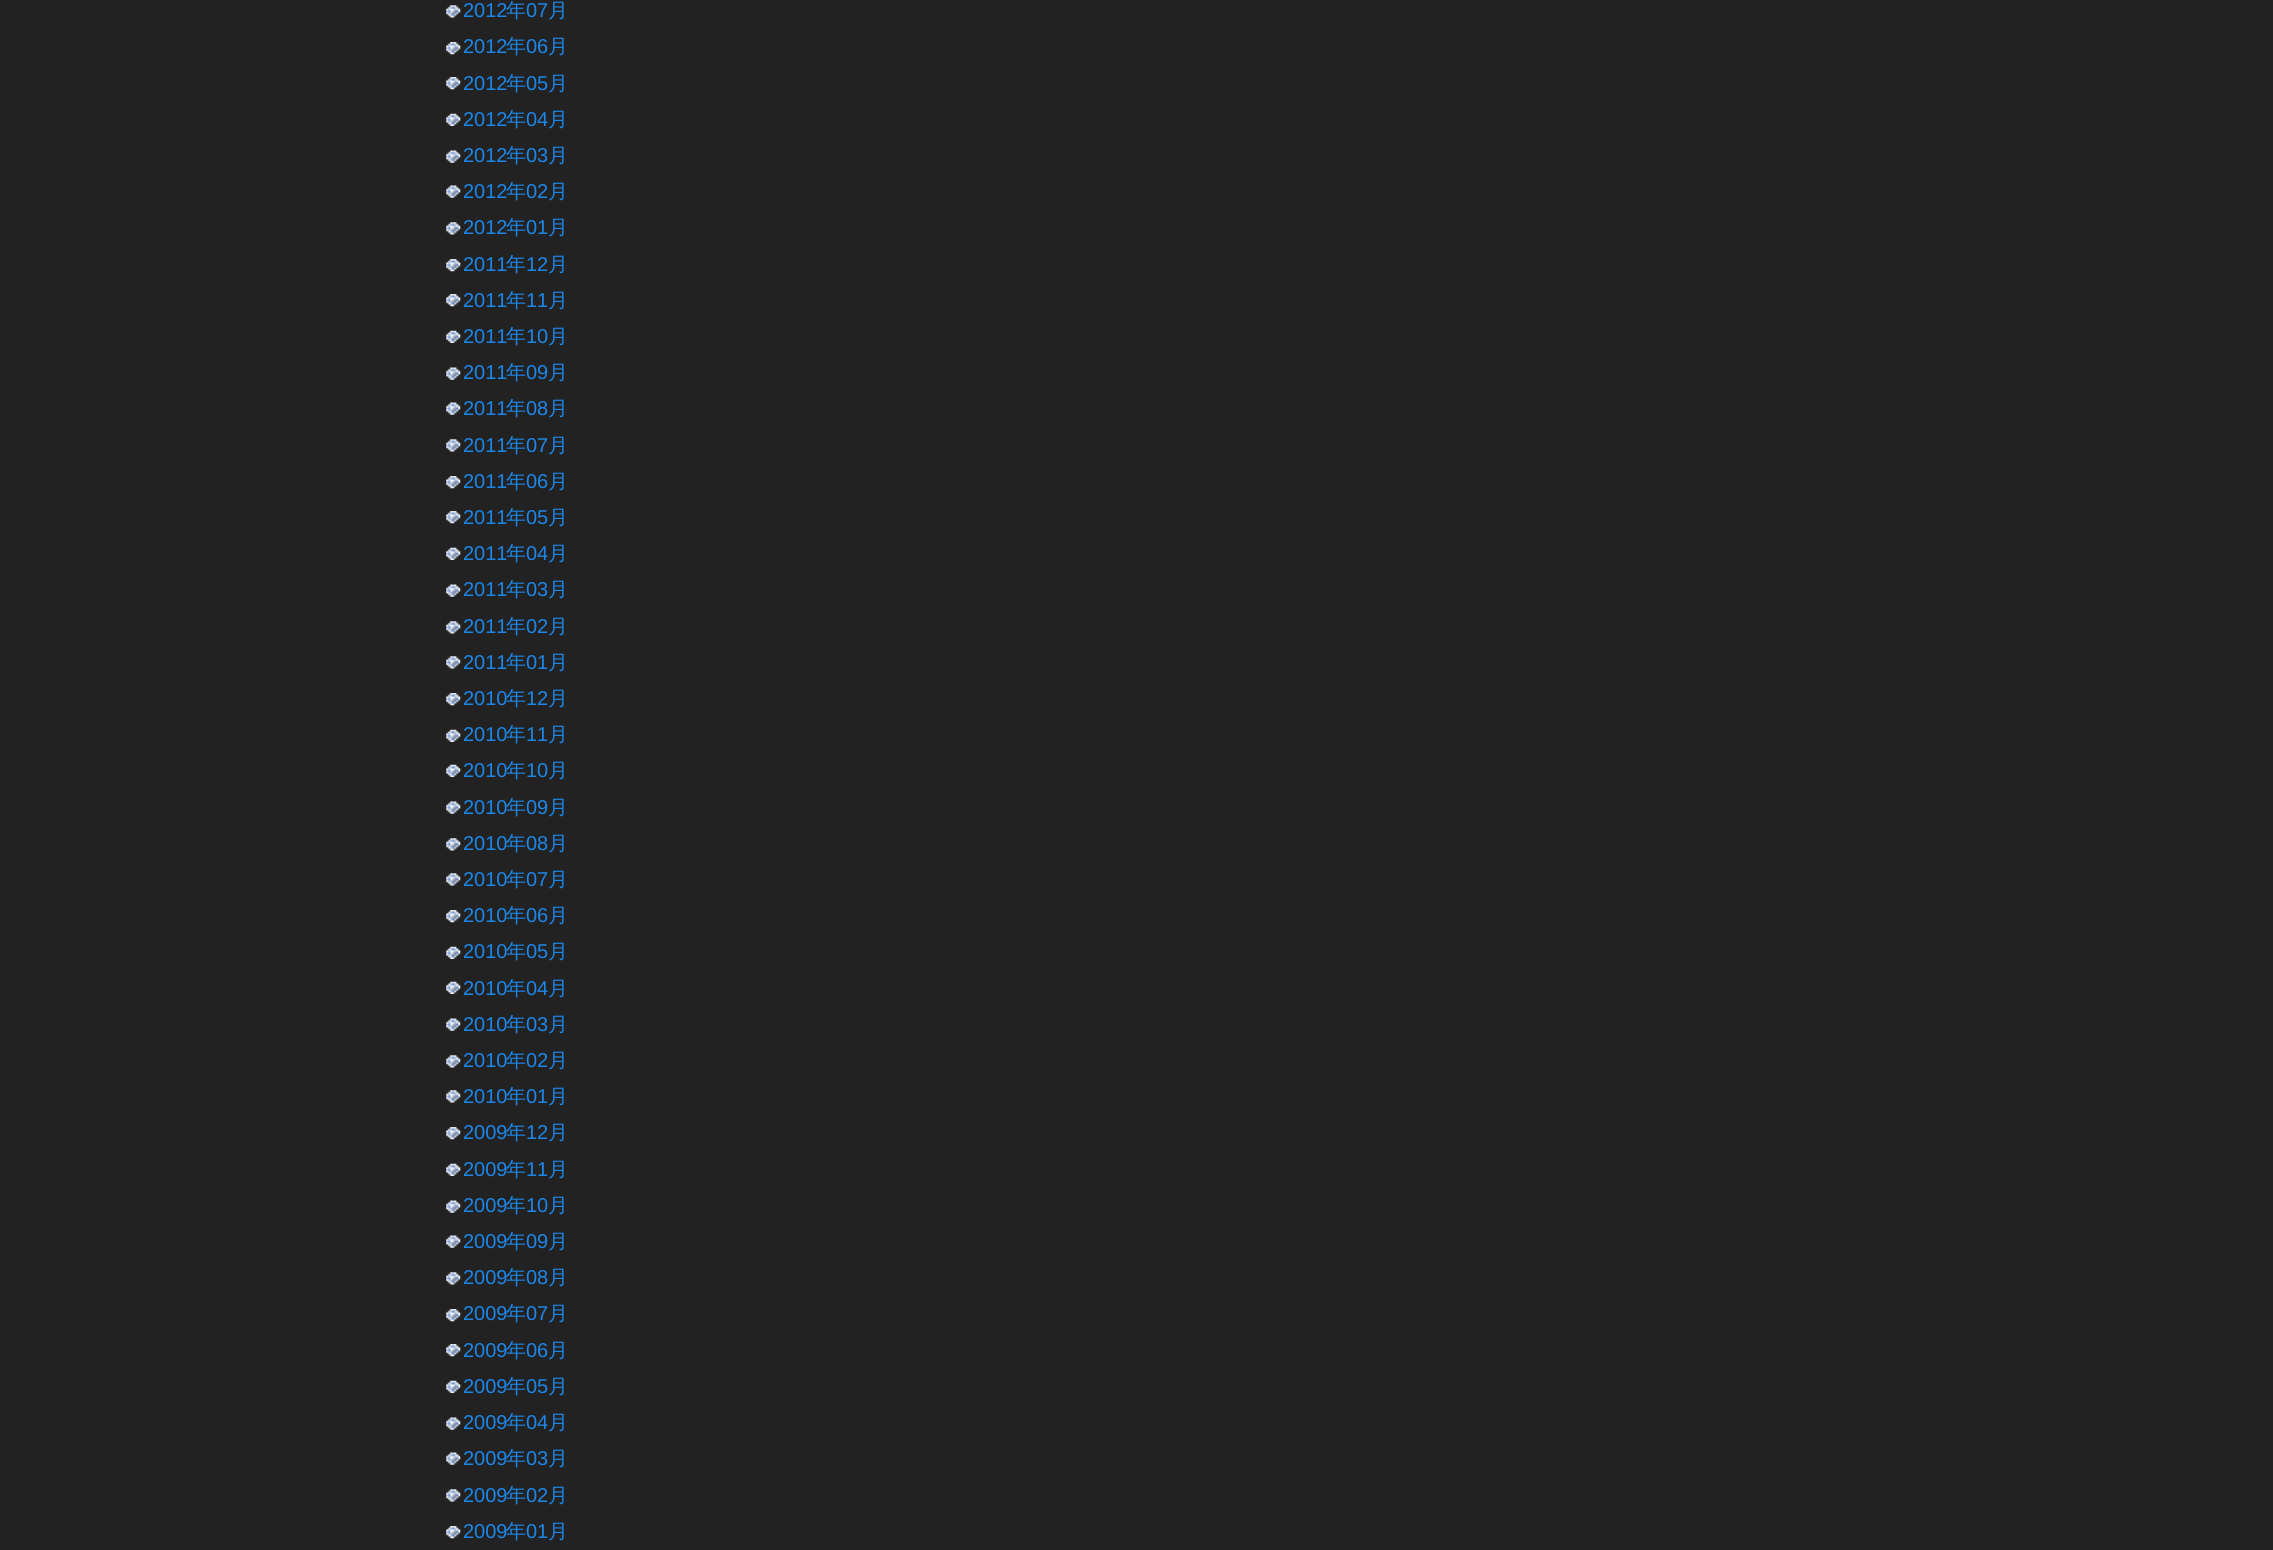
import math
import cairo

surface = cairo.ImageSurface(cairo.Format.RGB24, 2273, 1550)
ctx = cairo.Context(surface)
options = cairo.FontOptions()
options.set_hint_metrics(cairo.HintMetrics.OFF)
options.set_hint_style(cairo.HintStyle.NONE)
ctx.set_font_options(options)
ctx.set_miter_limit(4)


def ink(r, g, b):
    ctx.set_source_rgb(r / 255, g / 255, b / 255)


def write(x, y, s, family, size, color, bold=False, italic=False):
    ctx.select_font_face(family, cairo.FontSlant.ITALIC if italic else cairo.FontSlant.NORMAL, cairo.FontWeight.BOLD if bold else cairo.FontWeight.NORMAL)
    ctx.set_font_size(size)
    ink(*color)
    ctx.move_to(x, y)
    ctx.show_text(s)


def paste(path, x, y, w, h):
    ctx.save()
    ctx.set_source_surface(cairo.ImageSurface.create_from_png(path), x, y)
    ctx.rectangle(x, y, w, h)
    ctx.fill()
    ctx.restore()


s1 = dict(family="Liberation Sans", size=20, color=(28, 135, 234))
s2 = dict(family="WenQuanYi Zen Hei Medium", size=20, color=(28, 135, 234))

ink(34, 34, 34)
ctx.paint()
paste("pic1.png", 446, 5, 15, 13)
write(463, 17, "2012", **s1)
write(506, 17, "年", **s2)
write(526, 17, "07", **s1)
write(548, 17, "月", **s2)
paste("pic2.png", 446, 42, 15, 13)
write(463, 53, "2012", **s1)
write(506, 53, "年", **s2)
write(526, 53, "06", **s1)
write(548, 53, "月", **s2)
paste("pic2.png", 446, 77, 15, 13)
write(463, 90, "2012", **s1)
write(506, 90, "年", **s2)
write(526, 90, "05", **s1)
write(548, 90, "月", **s2)
paste("pic3.png", 446, 113, 15, 13)
write(463, 126, "2012", **s1)
write(506, 126, "年", **s2)
write(526, 126, "04", **s1)
write(548, 126, "月", **s2)
paste("pic4.png", 446, 150, 15, 13)
write(463, 162, "2012", **s1)
write(506, 162, "年", **s2)
write(526, 162, "03", **s1)
write(548, 162, "月", **s2)
paste("pic4.png", 446, 185, 15, 13)
write(463, 198, "2012", **s1)
write(506, 198, "年", **s2)
write(526, 198, "02", **s1)
write(548, 198, "月", **s2)
paste("pic1.png", 446, 222, 15, 13)
write(463, 234, "2012", **s1)
write(506, 234, "年", **s2)
write(526, 234, "01", **s1)
write(548, 234, "月", **s2)
paste("pic2.png", 446, 259, 15, 13)
write(463, 271, "2011", **s1)
write(506, 271, "年", **s2)
write(526, 271, "12", **s1)
write(548, 271, "月", **s2)
paste("pic2.png", 446, 294, 15, 13)
write(463, 307, "2011", **s1)
write(506, 307, "年", **s2)
write(526, 307, "11", **s1)
write(548, 307, "月", **s2)
paste("pic3.png", 446, 330, 15, 13)
write(463, 343, "2011", **s1)
write(506, 343, "年", **s2)
write(526, 343, "10", **s1)
write(548, 343, "月", **s2)
paste("pic4.png", 446, 367, 15, 13)
write(463, 379, "2011", **s1)
write(506, 379, "年", **s2)
write(526, 379, "09", **s1)
write(548, 379, "月", **s2)
paste("pic4.png", 446, 402, 15, 13)
write(463, 415, "2011", **s1)
write(506, 415, "年", **s2)
write(526, 415, "08", **s1)
write(548, 415, "月", **s2)
paste("pic1.png", 446, 439, 15, 13)
write(463, 452, "2011", **s1)
write(506, 452, "年", **s2)
write(526, 452, "07", **s1)
write(548, 452, "月", **s2)
paste("pic2.png", 446, 476, 15, 13)
write(463, 488, "2011", **s1)
write(506, 488, "年", **s2)
write(526, 488, "06", **s1)
write(548, 488, "月", **s2)
paste("pic2.png", 446, 511, 15, 13)
write(463, 524, "2011", **s1)
write(506, 524, "年", **s2)
write(526, 524, "05", **s1)
write(548, 524, "月", **s2)
paste("pic3.png", 446, 547, 15, 13)
write(463, 560, "2011", **s1)
write(506, 560, "年", **s2)
write(526, 560, "04", **s1)
write(548, 560, "月", **s2)
paste("pic4.png", 446, 584, 15, 13)
write(463, 596, "2011", **s1)
write(506, 596, "年", **s2)
write(526, 596, "03", **s1)
write(548, 596, "月", **s2)
paste("pic1.png", 446, 621, 15, 13)
write(463, 633, "2011", **s1)
write(506, 633, "年", **s2)
write(526, 633, "02", **s1)
write(548, 633, "月", **s2)
paste("pic1.png", 446, 656, 15, 13)
write(463, 669, "2011", **s1)
write(506, 669, "年", **s2)
write(526, 669, "01", **s1)
write(548, 669, "月", **s2)
paste("pic2.png", 446, 693, 15, 13)
write(463, 705, "2010", **s1)
write(506, 705, "年", **s2)
write(526, 705, "12", **s1)
write(548, 705, "月", **s2)
paste("pic3.png", 446, 729, 15, 13)
write(463, 741, "2010", **s1)
write(506, 741, "年", **s2)
write(526, 741, "11", **s1)
write(548, 741, "月", **s2)
paste("pic3.png", 446, 764, 15, 13)
write(463, 777, "2010", **s1)
write(506, 777, "年", **s2)
write(526, 777, "10", **s1)
write(548, 777, "月", **s2)
paste("pic4.png", 446, 801, 15, 13)
write(463, 814, "2010", **s1)
write(506, 814, "年", **s2)
write(526, 814, "09", **s1)
write(548, 814, "月", **s2)
paste("pic1.png", 446, 838, 15, 13)
write(463, 850, "2010", **s1)
write(506, 850, "年", **s2)
write(526, 850, "08", **s1)
write(548, 850, "月", **s2)
paste("pic1.png", 446, 873, 15, 13)
write(463, 886, "2010", **s1)
write(506, 886, "年", **s2)
write(526, 886, "07", **s1)
write(548, 886, "月", **s2)
paste("pic2.png", 446, 910, 15, 13)
write(463, 922, "2010", **s1)
write(506, 922, "年", **s2)
write(526, 922, "06", **s1)
write(548, 922, "月", **s2)
paste("pic3.png", 446, 946, 15, 13)
write(463, 958, "2010", **s1)
write(506, 958, "年", **s2)
write(526, 958, "05", **s1)
write(548, 958, "月", **s2)
paste("pic3.png", 446, 981, 15, 13)
write(463, 995, "2010", **s1)
write(506, 995, "年", **s2)
write(526, 995, "04", **s1)
write(548, 995, "月", **s2)
paste("pic4.png", 446, 1018, 15, 13)
write(463, 1031, "2010", **s1)
write(506, 1031, "年", **s2)
write(526, 1031, "03", **s1)
write(548, 1031, "月", **s2)
paste("pic1.png", 446, 1055, 15, 13)
write(463, 1067, "2010", **s1)
write(506, 1067, "年", **s2)
write(526, 1067, "02", **s1)
write(548, 1067, "月", **s2)
paste("pic1.png", 446, 1090, 15, 13)
write(463, 1103, "2010", **s1)
write(506, 1103, "年", **s2)
write(526, 1103, "01", **s1)
write(548, 1103, "月", **s2)
paste("pic2.png", 446, 1127, 15, 13)
write(463, 1139, "2009", **s1)
write(506, 1139, "年", **s2)
write(526, 1139, "12", **s1)
write(548, 1139, "月", **s2)
paste("pic3.png", 446, 1163, 15, 13)
write(463, 1176, "2009", **s1)
write(506, 1176, "年", **s2)
write(526, 1176, "11", **s1)
write(548, 1176, "月", **s2)
paste("pic4.png", 446, 1200, 15, 13)
write(463, 1212, "2009", **s1)
write(506, 1212, "年", **s2)
write(526, 1212, "10", **s1)
write(548, 1212, "月", **s2)
paste("pic4.png", 446, 1235, 15, 13)
write(463, 1248, "2009", **s1)
write(506, 1248, "年", **s2)
write(526, 1248, "09", **s1)
write(548, 1248, "月", **s2)
paste("pic1.png", 446, 1272, 15, 13)
write(463, 1284, "2009", **s1)
write(506, 1284, "年", **s2)
write(526, 1284, "08", **s1)
write(548, 1284, "月", **s2)
paste("pic2.png", 446, 1309, 15, 13)
write(463, 1320, "2009", **s1)
write(506, 1320, "年", **s2)
write(526, 1320, "07", **s1)
write(548, 1320, "月", **s2)
paste("pic2.png", 446, 1344, 15, 13)
write(463, 1357, "2009", **s1)
write(506, 1357, "年", **s2)
write(526, 1357, "06", **s1)
write(548, 1357, "月", **s2)
paste("pic3.png", 446, 1380, 15, 13)
write(463, 1393, "2009", **s1)
write(506, 1393, "年", **s2)
write(526, 1393, "05", **s1)
write(548, 1393, "月", **s2)
paste("pic4.png", 446, 1417, 15, 13)
write(463, 1429, "2009", **s1)
write(506, 1429, "年", **s2)
write(526, 1429, "04", **s1)
write(548, 1429, "月", **s2)
paste("pic4.png", 446, 1452, 15, 13)
write(463, 1465, "2009", **s1)
write(506, 1465, "年", **s2)
write(526, 1465, "03", **s1)
write(548, 1465, "月", **s2)
paste("pic1.png", 446, 1489, 15, 13)
write(463, 1502, "2009", **s1)
write(506, 1502, "年", **s2)
write(526, 1502, "02", **s1)
write(548, 1502, "月", **s2)
paste("pic2.png", 446, 1526, 15, 13)
write(463, 1538, "2009", **s1)
write(506, 1538, "年", **s2)
write(526, 1538, "01", **s1)
write(548, 1538, "月", **s2)
surface.write_to_png("screenshot.png")
